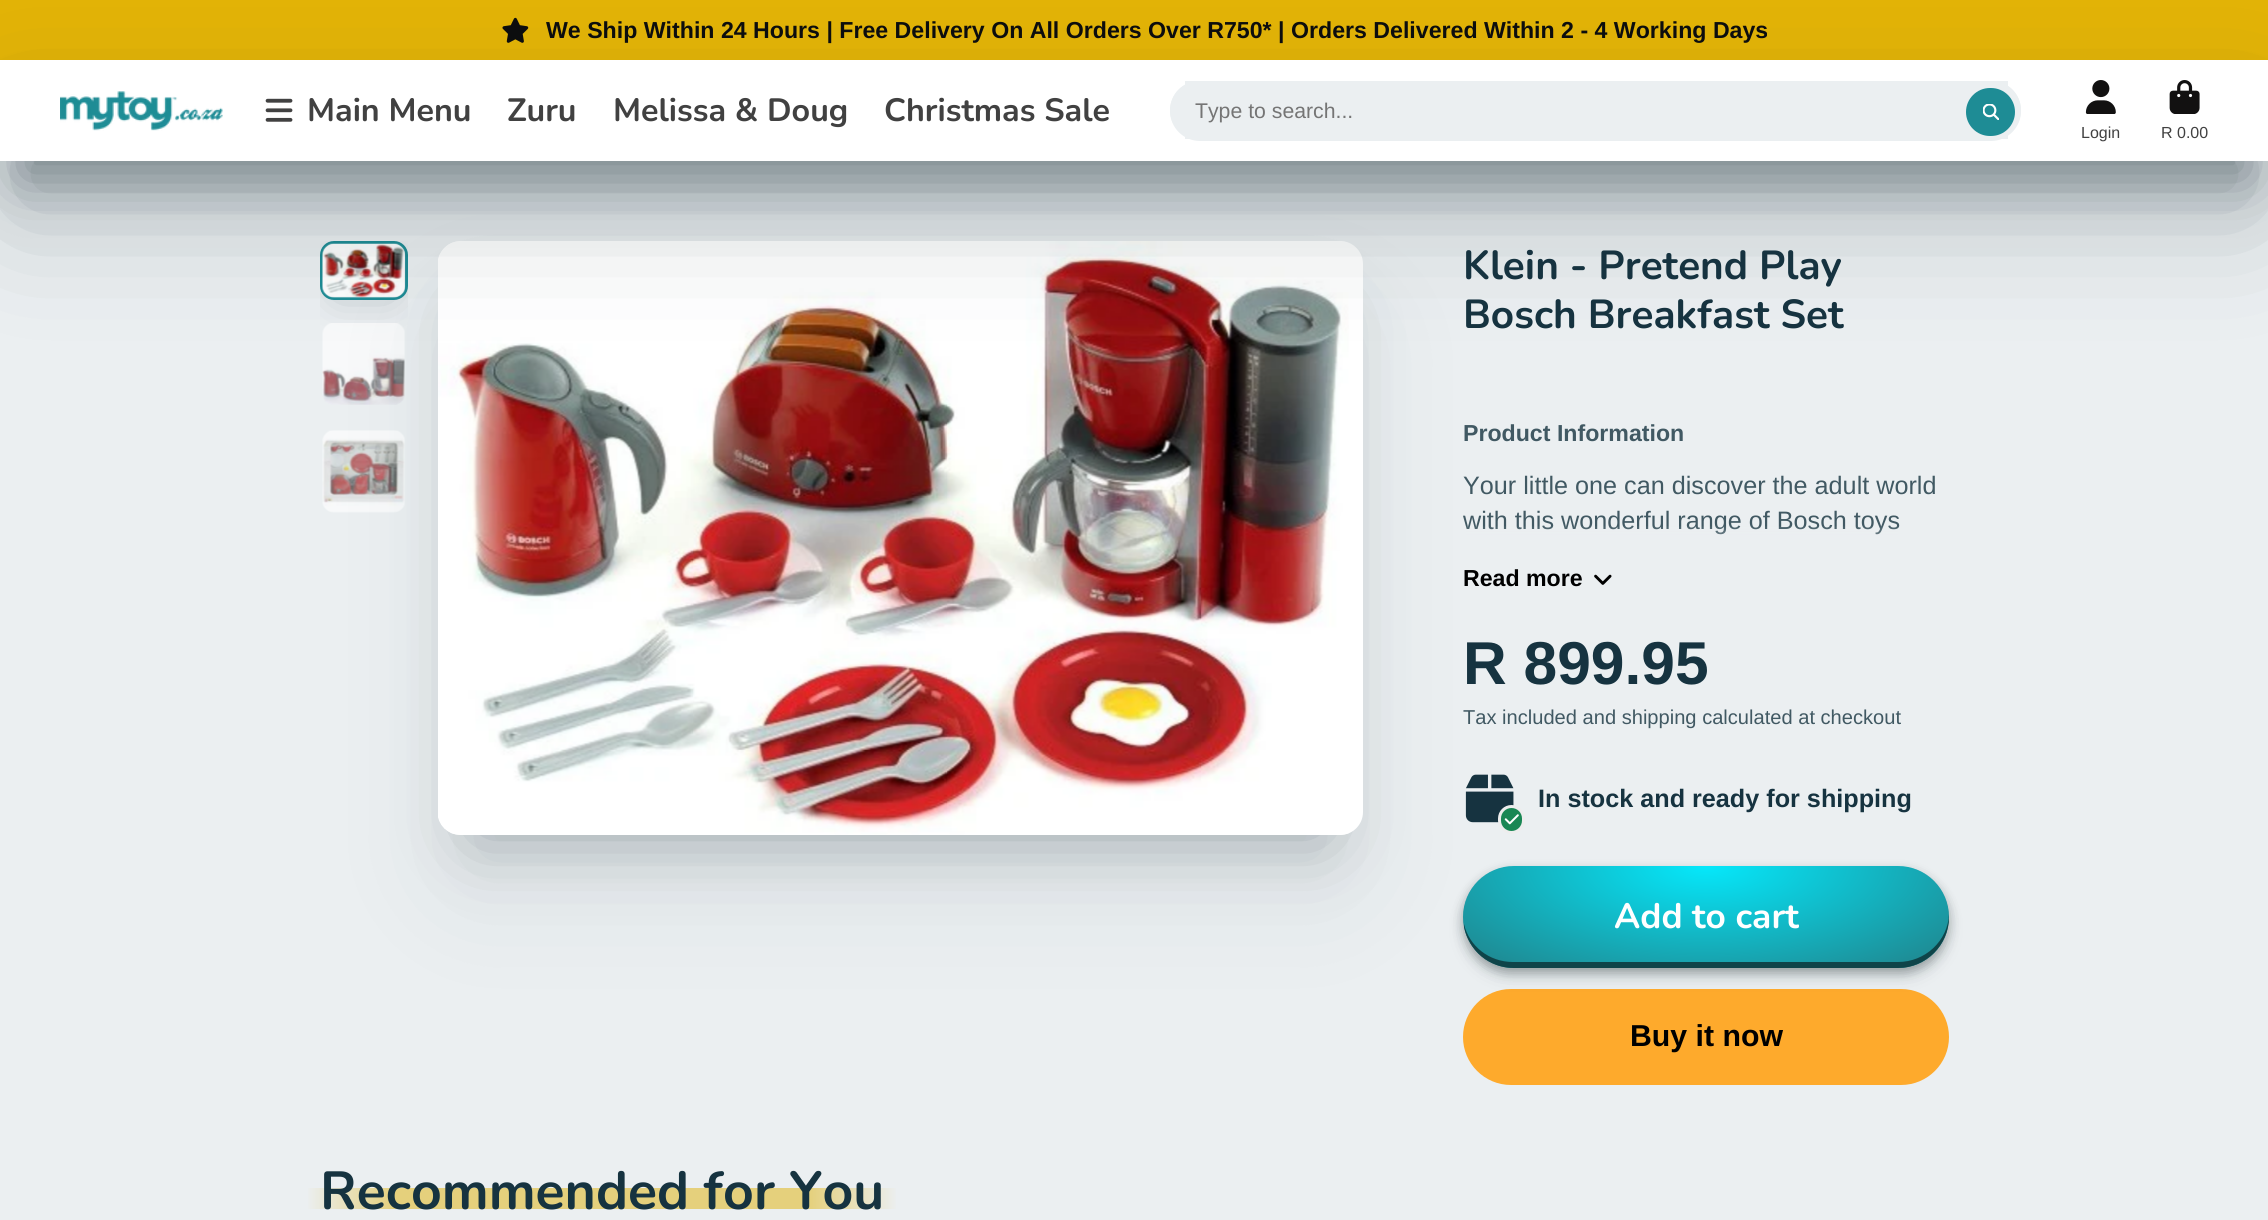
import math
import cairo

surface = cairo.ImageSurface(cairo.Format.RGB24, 2268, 1220)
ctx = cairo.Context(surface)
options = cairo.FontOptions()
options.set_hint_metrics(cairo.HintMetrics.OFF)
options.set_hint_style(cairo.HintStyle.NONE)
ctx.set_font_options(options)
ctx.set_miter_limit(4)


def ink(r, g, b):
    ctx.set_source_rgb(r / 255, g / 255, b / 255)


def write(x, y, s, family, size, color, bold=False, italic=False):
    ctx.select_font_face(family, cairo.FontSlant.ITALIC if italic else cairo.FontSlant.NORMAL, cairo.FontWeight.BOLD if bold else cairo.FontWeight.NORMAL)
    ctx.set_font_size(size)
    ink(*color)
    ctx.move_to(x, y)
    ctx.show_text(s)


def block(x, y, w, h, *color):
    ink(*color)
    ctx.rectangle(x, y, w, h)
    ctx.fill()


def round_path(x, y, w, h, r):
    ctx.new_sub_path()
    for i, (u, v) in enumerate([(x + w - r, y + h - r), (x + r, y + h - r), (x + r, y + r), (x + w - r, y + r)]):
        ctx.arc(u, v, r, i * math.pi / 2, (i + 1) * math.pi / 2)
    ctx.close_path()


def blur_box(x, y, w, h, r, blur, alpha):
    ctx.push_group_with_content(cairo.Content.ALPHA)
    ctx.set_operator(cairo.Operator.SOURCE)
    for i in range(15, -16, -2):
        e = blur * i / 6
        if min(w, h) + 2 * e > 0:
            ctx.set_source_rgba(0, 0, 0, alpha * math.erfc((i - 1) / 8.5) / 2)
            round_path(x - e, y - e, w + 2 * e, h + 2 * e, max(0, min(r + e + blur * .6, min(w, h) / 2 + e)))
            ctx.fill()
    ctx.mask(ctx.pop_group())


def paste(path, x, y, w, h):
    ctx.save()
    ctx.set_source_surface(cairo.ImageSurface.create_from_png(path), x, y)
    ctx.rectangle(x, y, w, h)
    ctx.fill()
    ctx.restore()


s1 = dict(family="Liberation Sans", size=23.15, color=(12, 13, 13), bold=True)
s2 = dict(family="Nunito", size=32.25, color=(65, 65, 65), bold=True)
s3 = dict(family="Liberation Sans", size=21.25, color=(117, 117, 117))
s4 = dict(family="Liberation Sans", size=16, color=(65, 65, 65))
s5 = dict(family="Nunito", size=40.5, color=(22, 51, 64), bold=True)
s6 = dict(family="Liberation Sans", size=23.15, color=(65, 89, 99), bold=True)
s7 = dict(family="Liberation Sans", size=25.2, color=(65, 89, 99))
s8 = dict(family="Liberation Sans", size=23.15, color=(0, 0, 0), bold=True)
s9 = dict(family="Liberation Sans", size=60.5, color=(22, 51, 64), bold=True)
s10 = dict(family="Liberation Sans", size=20.1, color=(65, 89, 99))
s11 = dict(family="Liberation Sans", size=25.2, color=(22, 51, 64), bold=True)
s12 = dict(family="Nunito", size=35.25, color=(255, 255, 255), bold=True)
s13 = dict(family="Liberation Sans", size=30.25, color=(0, 0, 0), bold=True)
s14 = dict(family="Nunito", size=53.5, color=(22, 51, 64), bold=True)

ink(235, 239, 241)
ctx.paint()
block(0, 0, 2268, 60, 226, 179, 6)
paste("pic1.png", 502, 17, 27, 26)
write(546, 38, "We Ship Within 24 Hours | Free Delivery On All Orders Over R750* | Orders Delivered Within 2 - 4 Working Days", **s1)
ctx.save()
ctx.rectangle(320, 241, 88, 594)
ctx.clip()
ink(15, 36, 45)
blur_box(340, 271, 48, 19, 0, 20, 0.3)
ctx.restore()
round_path(321.5, 242.5, 85, 56, 12.5)
ink(30, 140, 149)
ctx.set_line_width(3)
ctx.stroke()
paste("pic8.png", 322, 243, 84, 55)
paste("pic9.png", 322, 323, 83, 82)
paste("pic10.png", 322, 430, 83, 83)
ink(15, 36, 45)
blur_box(475, 316, 850, 519, 0, 37.5, 0.3)
blur_box(463, 329, 875, 544, 0, 63, 0.1)
ink(255, 255, 255)
round_path(438, 241, 925, 594, 23)
ctx.fill()
paste("pic7.png", 438, 241, 911, 594)
ink(15, 36, 45)
blur_box(20, 118, 2229, 61, 0, 27.5, 0.4)
blur_box(20, 143, 2229, 61, 0, 63, 0.3)
block(0, 60, 2268, 101, 255, 255, 255)
paste("pic2.png", 60, 91, 163, 40)
paste("pic3.png", 265, 98, 28, 24)
write(307, 121, "Main Menu", **s2)
write(507, 121, "Zuru", **s2)
write(613, 121, "Melissa & Doug", **s2)
write(884, 121, "Christmas Sale", **s2)
ink(235, 239, 241)
round_path(1170, 81, 851, 58, 29)
ctx.fill()
block(1185, 81, 823, 58, 235, 239, 241)
round_path(1170, 81, 851, 60, 30)
ctx.fill()
write(1195, 118, "Type to search...", **s3)
ink(30, 140, 149)
round_path(1966, 88, 49, 48, 24)
ctx.fill()
paste("pic4.png", 1983, 104, 16, 16)
paste("pic5.png", 2085, 80, 31, 34)
write(2081, 138, "Login", **s4)
paste("pic6.png", 2169, 80, 31, 34)
write(2161, 138, "R 0.00", **s4)
write(1463, 279, "Klein - Pretend Play", **s5)
write(1463, 328, "Bosch Breakfast Set", **s5)
write(1463, 441, "Product Information", **s6)
write(1463, 494, "Your little one can discover the adult world", **s7)
write(1463, 529, "with this wonderful range of Bosch toys", **s7)
gradient = cairo.LinearGradient(1706, 593, 1706, 525)
gradient.add_color_stop_rgba(0.35, 0.922, 0.937, 0.945, 1)
gradient.add_color_stop_rgba(1, 0.922, 0.937, 0.945, 0)
ctx.set_source(gradient)
ctx.rectangle(1466, 526, 432, 9)
ctx.fill()
write(1463, 586, "Read more", **s8)
paste("pic11.png", 1594, 574, 18, 11)
write(1463, 684, "R 899.95", **s9)
write(1463, 724, "Tax included and shipping calculated at checkout", **s10)
paste("pic12.png", 1465, 774, 49, 49)
ink(25, 135, 84)
round_path(1499.5, 806.5, 24, 26, 12)
ctx.fill_preserve()
ink(237, 237, 237)
ctx.stroke()
paste("pic13.png", 1504, 814, 15, 11)
write(1538, 807, "In stock and ready for shipping", **s11)
ink(254, 170, 44)
round_path(1463, 989, 486, 96, 48)
ctx.fill()
ink(4, 20, 22)
blur_box(1468, 883, 476, 90, 45, 10.5, 0.15)
blur_box(1463, 871, 486, 102, 51, 5.5, 0.3)
ctx.save()
round_path(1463, 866, 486, 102, 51)
ctx.clip()
blur_box(1468, 883, 476, 90, 45, 10.5, 0.15)
blur_box(1463, 871, 486, 102, 51, 5.5, 0.3)
ctx.restore()
gradient = cairo.RadialGradient(0, 0, 0, 0, 0, 1)
gradient.set_matrix(cairo.Matrix(1 / 344, 0, 0, 1 / 143, -1 * 1706 / 344, -1 * 866 / 143))
gradient.add_color_stop_rgba(0, 0.02, 0.91, 0.984, 1)
gradient.add_color_stop_rgba(0.9, 0.118, 0.549, 0.584, 1)
ctx.set_source(gradient)
round_path(1463, 866, 486, 102, 51)
ctx.fill()
ink(15, 68, 73)
ctx.new_path()
ctx.move_to(1464, 924)
ctx.line_to(1464, 927)
ctx.curve_to(1469, 951, 1489, 968, 1514, 968)
ctx.line_to(1898, 968)
ctx.curve_to(1926, 968, 1949, 945, 1949, 917)
ctx.line_to(1949, 914)
ctx.curve_to(1948, 941, 1925, 962, 1898, 962)
ctx.line_to(1513, 962)
ctx.curve_to(1489, 962, 1469, 946, 1464, 924)
ctx.close_path()
ctx.fill()
write(1614, 928, "Add to cart", **s12)
write(1630, 1046, "Buy it now", **s13)
gradient = cairo.LinearGradient(306, 1198, 898, 1198)
gradient.add_color_stop_rgba(0, 0.922, 0.937, 0.945, 1)
gradient.add_color_stop_rgba(0.15, 0.898, 0.816, 0.486, 1)
gradient.add_color_stop_rgba(0.85, 0.898, 0.816, 0.486, 1)
gradient.add_color_stop_rgba(1, 0.922, 0.937, 0.945, 1)
ctx.set_source(gradient)
ctx.rectangle(308, 1188, 588, 21)
ctx.fill()
write(320, 1209, "Recommended for You", **s14)
surface.write_to_png("screenshot.png")
